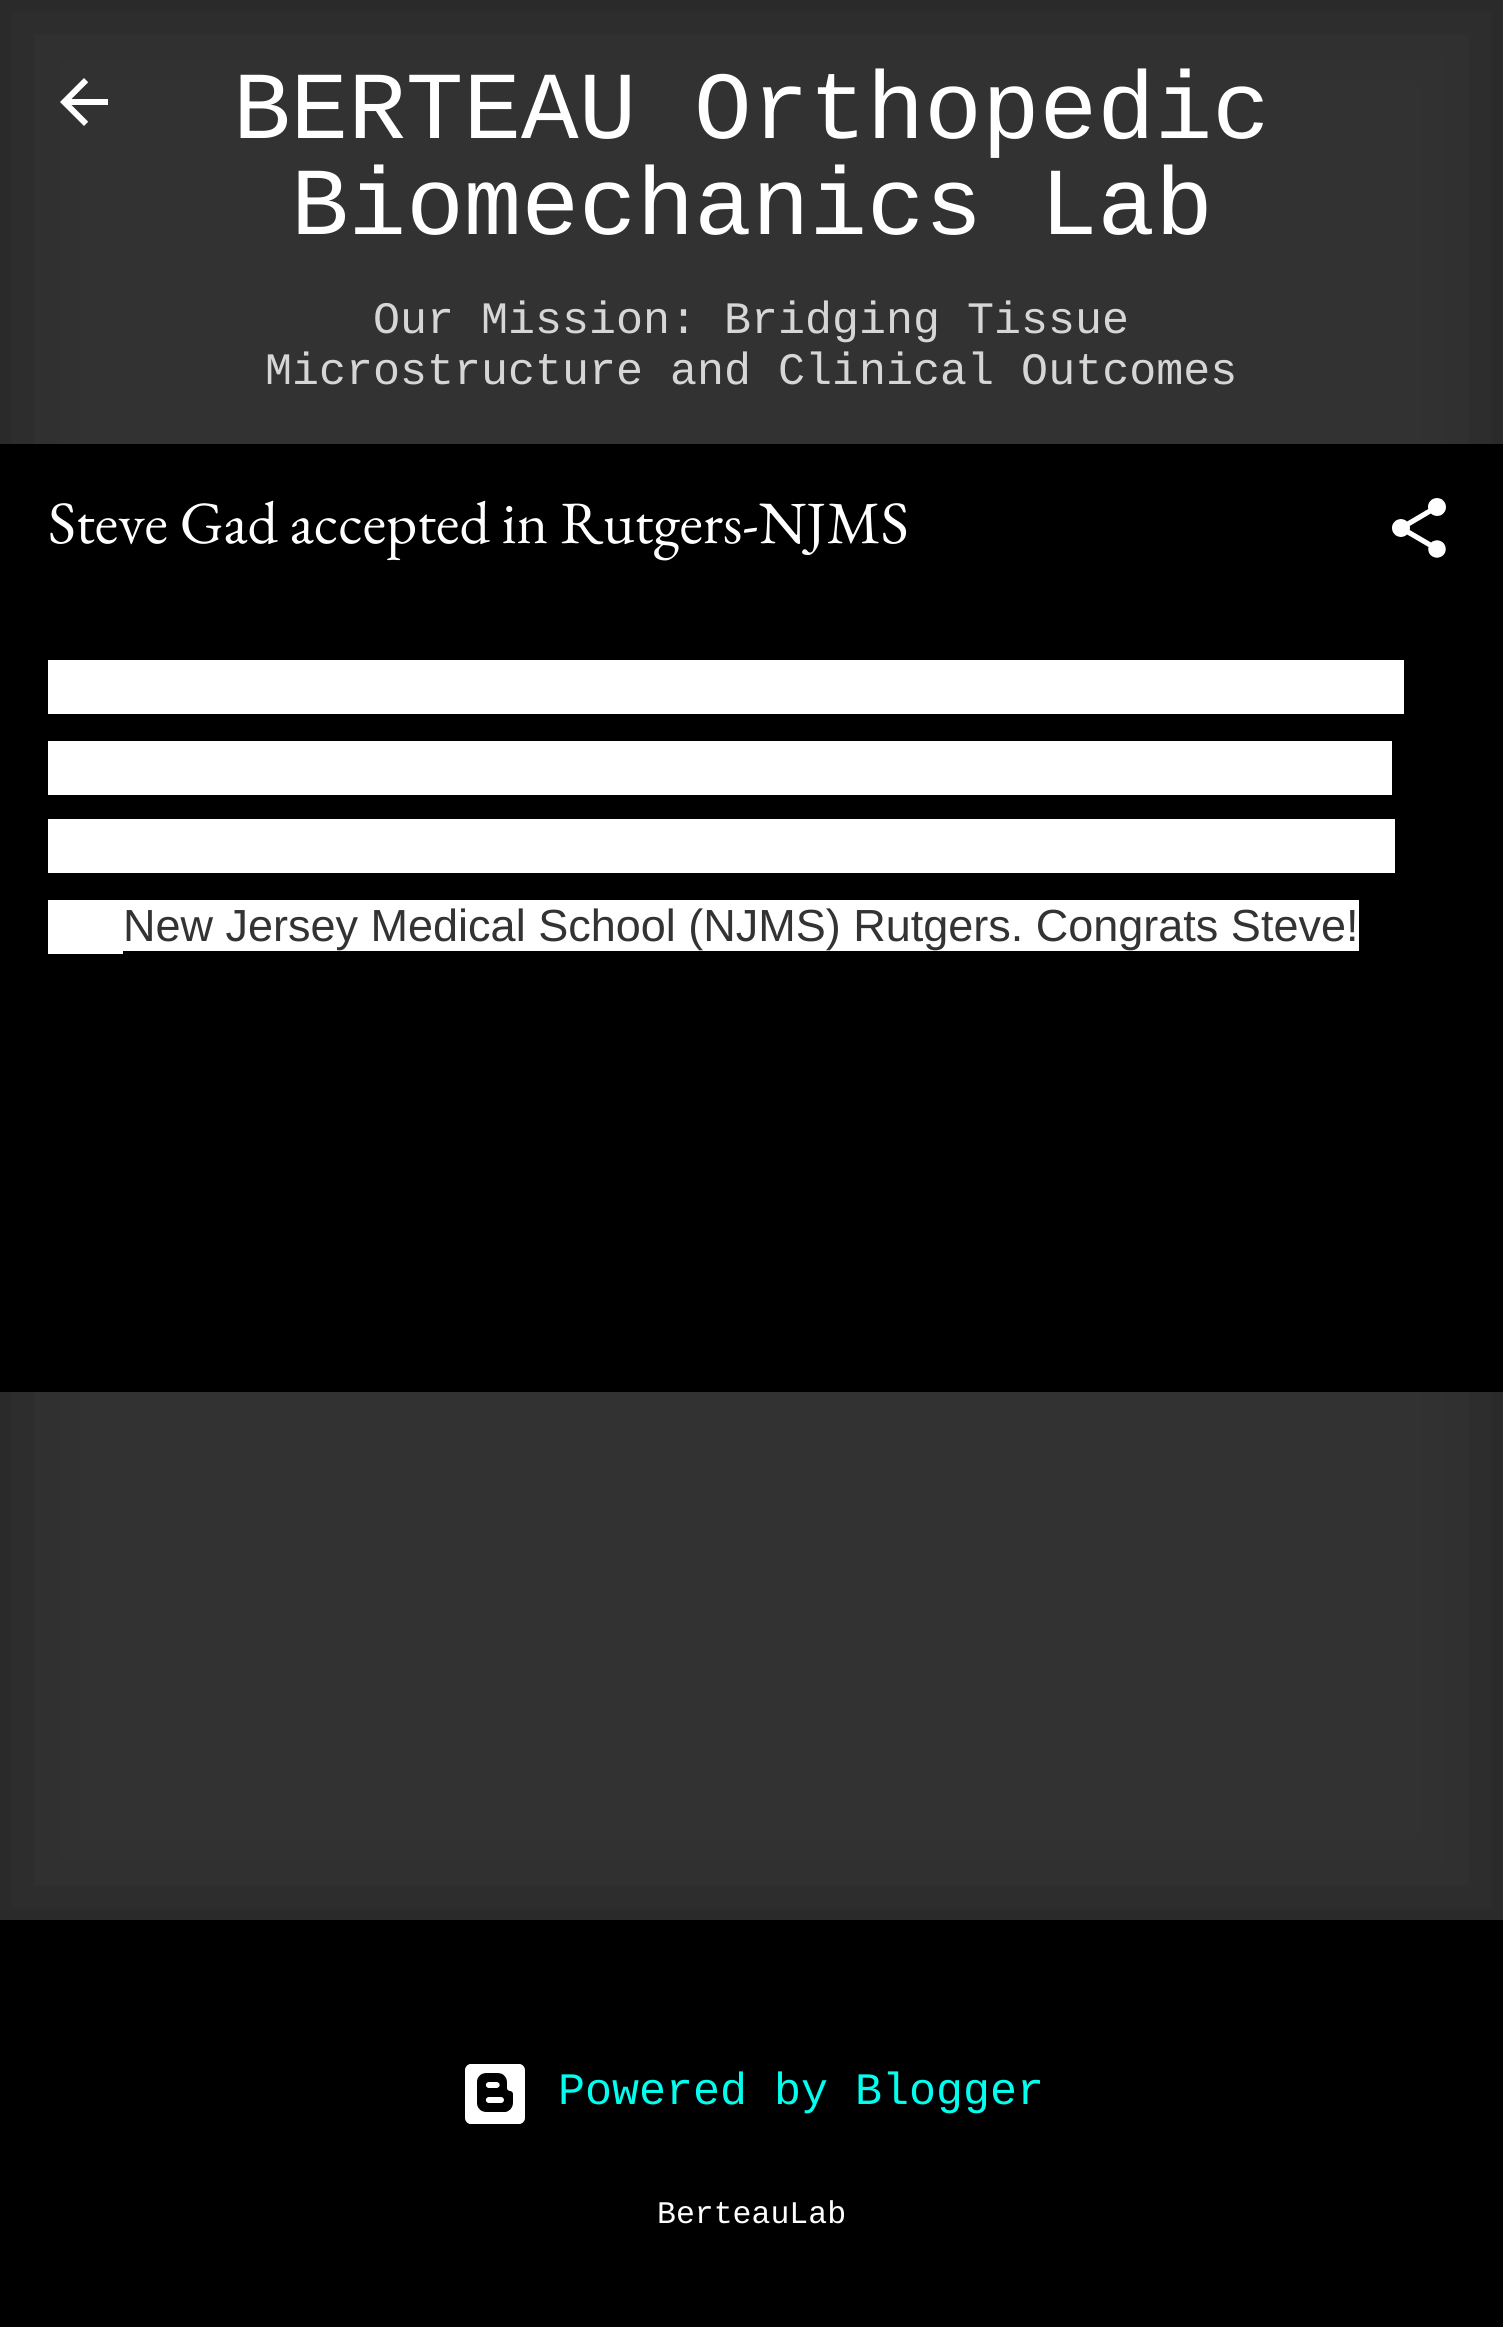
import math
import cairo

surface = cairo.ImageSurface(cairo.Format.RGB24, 1503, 2327)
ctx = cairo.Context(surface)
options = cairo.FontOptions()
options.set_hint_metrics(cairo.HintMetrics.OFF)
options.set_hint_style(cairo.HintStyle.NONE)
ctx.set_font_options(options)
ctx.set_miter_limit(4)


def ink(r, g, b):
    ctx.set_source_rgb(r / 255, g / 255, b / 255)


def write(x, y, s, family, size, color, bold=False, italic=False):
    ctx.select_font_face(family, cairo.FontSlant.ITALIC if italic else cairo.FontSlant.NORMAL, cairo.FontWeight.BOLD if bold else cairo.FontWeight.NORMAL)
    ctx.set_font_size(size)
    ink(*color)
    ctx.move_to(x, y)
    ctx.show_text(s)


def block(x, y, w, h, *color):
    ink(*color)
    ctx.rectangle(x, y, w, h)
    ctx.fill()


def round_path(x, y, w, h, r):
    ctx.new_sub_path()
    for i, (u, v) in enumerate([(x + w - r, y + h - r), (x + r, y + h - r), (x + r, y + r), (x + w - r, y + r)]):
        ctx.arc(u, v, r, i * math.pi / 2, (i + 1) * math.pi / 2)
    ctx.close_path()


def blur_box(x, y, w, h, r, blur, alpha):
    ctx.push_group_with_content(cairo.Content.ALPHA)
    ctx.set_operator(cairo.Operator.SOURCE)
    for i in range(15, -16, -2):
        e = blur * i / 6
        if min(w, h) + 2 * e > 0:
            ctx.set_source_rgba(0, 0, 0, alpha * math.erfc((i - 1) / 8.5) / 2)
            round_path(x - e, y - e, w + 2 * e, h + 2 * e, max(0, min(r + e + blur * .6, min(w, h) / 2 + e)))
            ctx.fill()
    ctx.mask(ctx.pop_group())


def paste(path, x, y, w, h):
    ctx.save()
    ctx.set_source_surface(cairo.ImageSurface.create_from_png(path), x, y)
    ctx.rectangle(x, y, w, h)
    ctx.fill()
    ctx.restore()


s1 = dict(family="Liberation Mono", size=96, color=(255, 255, 255))
s2 = dict(family="Liberation Mono", size=45, color=(214, 214, 214))
s3 = dict(family="EB Garamond", size=60, color=(255, 255, 255))
s4 = dict(family="Liberation Sans", size=45, color=(51, 51, 51))
s5 = dict(family="Liberation Mono", size=45, color=(0, 255, 238))
s6 = dict(family="Liberation Mono", size=31.5, color=(255, 255, 255))

ink(0, 0, 0)
ctx.paint()
ctx.save()
ctx.rectangle(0, 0, 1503, 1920)
ctx.clip()
ink(50, 50, 50)
blur_box(-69, -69, 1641, 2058, 0, 69, 1)
ctx.restore()
paste("pic1.png", 60, 78, 48, 48)
write(233, 138, "BERTEAU Orthopedic", **s1)
write(291, 234, "Biomechanics Lab", **s1)
write(373, 333, "Our Mission: Bridging Tissue", **s2)
write(265, 384, "Microstructure and Clinical Outcomes", **s2)
block(0, 444, 1503, 948, 0, 0, 0)
write(48, 543, "Steve Gad accepted in Rutgers-NJMS", **s3)
paste("pic2.png", 1392, 498, 54, 60)
block(48, 660, 1356, 54, 255, 255, 255)
block(48, 741, 1344, 54, 255, 255, 255)
block(48, 819, 1347, 54, 255, 255, 255)
block(48, 900, 75, 54, 255, 255, 255)
block(123, 900, 1236, 51, 255, 255, 255)
write(123, 941, "New Jersey Medical School (NJMS) Rutgers. Congrats Steve!", **s4)
paste("pic3.png", 465, 2064, 60, 60)
write(558, 2104, "Powered by Blogger", **s5)
write(657, 2223, "BerteauLab", **s6)
surface.write_to_png("screenshot.png")
